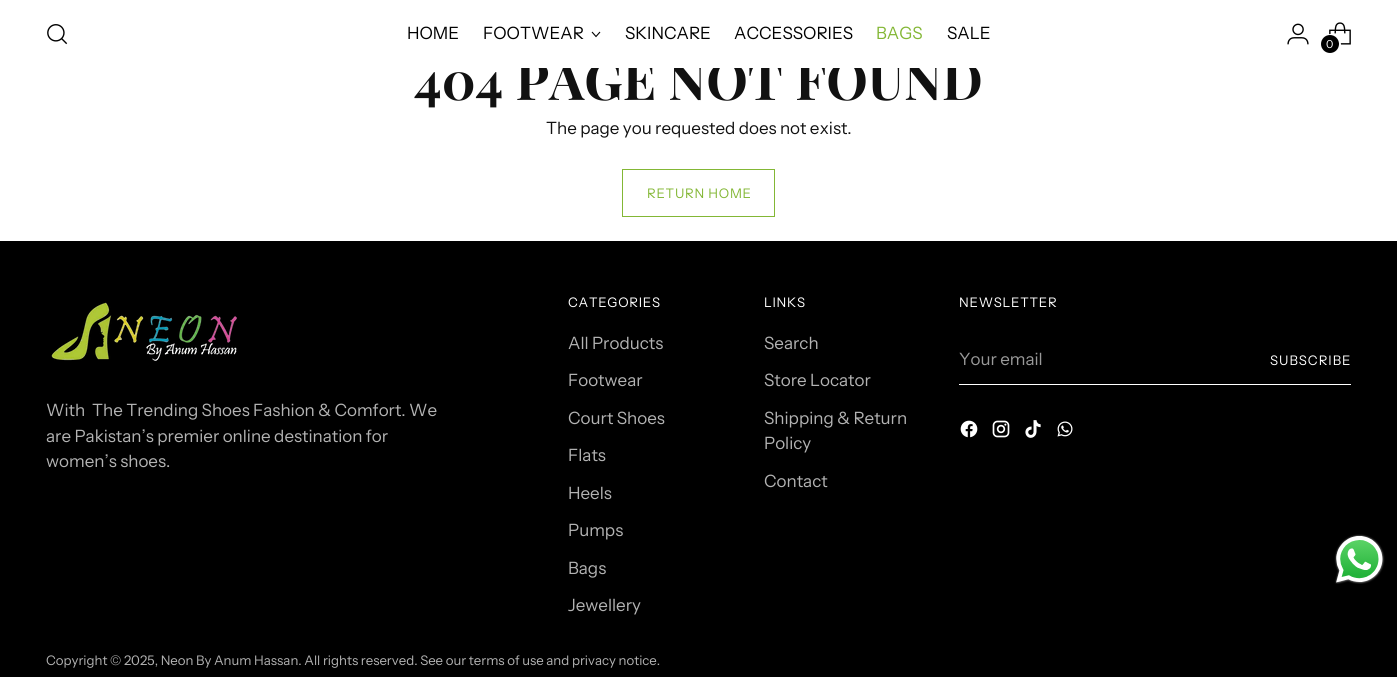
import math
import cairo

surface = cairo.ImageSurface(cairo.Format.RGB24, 1397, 677)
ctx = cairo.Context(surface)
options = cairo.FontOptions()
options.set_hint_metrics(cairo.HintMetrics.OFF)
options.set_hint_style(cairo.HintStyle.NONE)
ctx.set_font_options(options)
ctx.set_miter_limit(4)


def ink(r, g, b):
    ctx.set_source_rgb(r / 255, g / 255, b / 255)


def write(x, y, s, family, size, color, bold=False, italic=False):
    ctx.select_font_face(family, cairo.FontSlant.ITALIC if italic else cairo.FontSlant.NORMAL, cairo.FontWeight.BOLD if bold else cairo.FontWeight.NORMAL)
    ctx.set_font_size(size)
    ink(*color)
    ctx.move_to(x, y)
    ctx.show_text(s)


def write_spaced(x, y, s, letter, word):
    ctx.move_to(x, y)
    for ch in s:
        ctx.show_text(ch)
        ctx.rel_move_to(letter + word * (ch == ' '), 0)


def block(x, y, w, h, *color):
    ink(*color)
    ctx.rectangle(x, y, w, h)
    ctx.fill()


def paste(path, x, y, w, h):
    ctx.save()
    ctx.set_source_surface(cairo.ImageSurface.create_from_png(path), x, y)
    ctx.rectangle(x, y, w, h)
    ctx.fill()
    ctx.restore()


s1 = dict(family="Playfair Display", size=52.5, color=(17, 17, 17), bold=True)
s2 = dict(family="Instrument Sans", size=17, color=(0, 0, 0))
s3 = dict(family="Instrument Sans", size=17, color=(131, 183, 53))
s4 = dict(family="Instrument Sans", size=11, color=(255, 255, 255))
s5 = dict(family="Instrument Sans", size=17, color=(17, 17, 17))
s6 = dict(family="Instrument Sans", size=17, color=(179, 179, 179))
s7 = dict(family="Instrument Sans", size=17, color=(153, 153, 153))
s8 = dict(family="Instrument Sans", size=13.2, color=(179, 179, 179))

ink(255, 255, 255)
ctx.paint()
write(414, 100, "404 PAGE NOT FOUND", **s1)
block(517, 62, 459, 6, 255, 255, 255)
paste("pic1.png", 47, 24, 21, 21)
write(407, 39, "HOME", **s2)
write(483, 39, "FOOTWEAR", **s2)
ctx.new_path()
ctx.move_to(592, 32)
ctx.line_to(596, 36.5)
ctx.line_to(600, 32)
ctx.set_line_width(1.1)
ctx.stroke()
write(625, 39, "SKINCARE", **s2)
write(734, 39, "ACCESSORIES", **s2)
write(876, 39, "BAGS", **s3)
write(947, 39, "SALE", **s2)
paste("pic2.png", 1287, 23, 22, 22)
paste("pic3.png", 1329, 22, 22, 23)
ctx.arc(1330.5, 44.5, 9.5, 0, 2 * math.pi)
ink(255, 255, 255)
ctx.set_line_width(2)
ctx.stroke()
ink(0, 0, 0)
ctx.arc(1330, 44, 9, 0, 2 * math.pi)
ctx.fill()
write(1326, 48, "0", **s4)
write(546, 134, "The page you requested does not exist.", **s5)
ctx.rectangle(622.5, 169.5, 152, 47)
ink(131, 183, 53)
ctx.set_line_width(1)
ctx.stroke()
ctx.set_font_size(13.2)
write_spaced(647, 198, "RETURN HOME", 0.75, 0)
block(0, 241, 1397, 436, 0, 0, 0)
ink(255, 255, 255)
write_spaced(568, 307, "CATEGORIES", 0.75, 0)
write(568, 349, "All Products", **s6)
write(568, 386, "Footwear", **s6)
write(568, 424, "Court Shoes", **s6)
write(568, 461, "Flats", **s6)
write(568, 499, "Heels", **s6)
write(568, 536, "Pumps", **s6)
write(568, 574, "Bags", **s6)
write(568, 611, "Jewellery", **s6)
ctx.set_font_size(13.2)
ink(255, 255, 255)
write_spaced(764, 307, "LINKS", 0.75, 0)
write(764, 349, "Search", **s6)
write(764, 386, "Store Locator", **s6)
write(764, 424, "Shipping & Return", **s6)
write(764, 449, "Policy", **s6)
write(764, 487, "Contact", **s6)
ctx.set_font_size(13.2)
ink(255, 255, 255)
write_spaced(959, 307, "NEWSLETTER", 0.75, 0)
block(959, 384, 392, 1, 255, 255, 255)
write(959, 365, "Your email", **s7)
ctx.set_font_size(13.2)
ink(255, 255, 255)
write_spaced(1270, 365, "SUBSCRIBE", 1, 0)
paste("pic4.png", 960, 420, 18, 18)
paste("pic5.png", 992, 420, 18, 18)
paste("pic6.png", 1025, 420, 16, 18)
paste("pic7.png", 1057, 421, 16, 16)
paste("pic8.png", 51, 302, 186, 59)
write(46, 416, "With  The Trending Shoes Fashion & Comfort. We", **s6)
write(46, 442, "are Pakistan’s premier online destination for", **s6)
write(46, 467, "women’s shoes.", **s6)
write(46, 665, "Copyright © 2025, Neon By Anum Hassan. All rights reserved. See our terms of use and privacy notice.", **s8)
paste("pic9.png", 1334, 534, 51, 50)
surface.write_to_png("screenshot.png")
